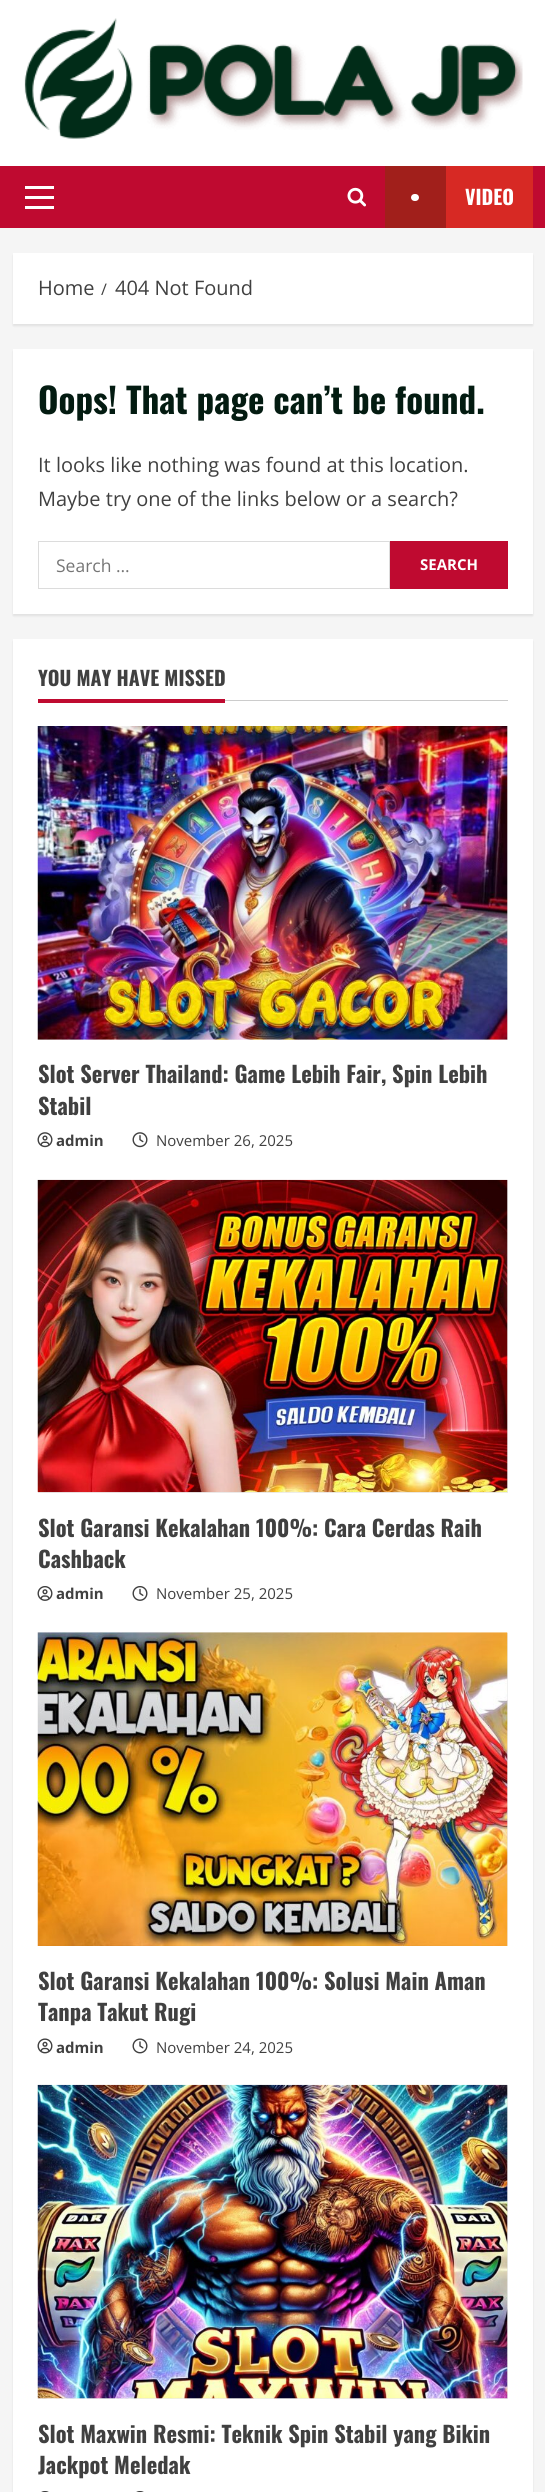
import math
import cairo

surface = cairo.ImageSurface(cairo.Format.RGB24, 545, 2492)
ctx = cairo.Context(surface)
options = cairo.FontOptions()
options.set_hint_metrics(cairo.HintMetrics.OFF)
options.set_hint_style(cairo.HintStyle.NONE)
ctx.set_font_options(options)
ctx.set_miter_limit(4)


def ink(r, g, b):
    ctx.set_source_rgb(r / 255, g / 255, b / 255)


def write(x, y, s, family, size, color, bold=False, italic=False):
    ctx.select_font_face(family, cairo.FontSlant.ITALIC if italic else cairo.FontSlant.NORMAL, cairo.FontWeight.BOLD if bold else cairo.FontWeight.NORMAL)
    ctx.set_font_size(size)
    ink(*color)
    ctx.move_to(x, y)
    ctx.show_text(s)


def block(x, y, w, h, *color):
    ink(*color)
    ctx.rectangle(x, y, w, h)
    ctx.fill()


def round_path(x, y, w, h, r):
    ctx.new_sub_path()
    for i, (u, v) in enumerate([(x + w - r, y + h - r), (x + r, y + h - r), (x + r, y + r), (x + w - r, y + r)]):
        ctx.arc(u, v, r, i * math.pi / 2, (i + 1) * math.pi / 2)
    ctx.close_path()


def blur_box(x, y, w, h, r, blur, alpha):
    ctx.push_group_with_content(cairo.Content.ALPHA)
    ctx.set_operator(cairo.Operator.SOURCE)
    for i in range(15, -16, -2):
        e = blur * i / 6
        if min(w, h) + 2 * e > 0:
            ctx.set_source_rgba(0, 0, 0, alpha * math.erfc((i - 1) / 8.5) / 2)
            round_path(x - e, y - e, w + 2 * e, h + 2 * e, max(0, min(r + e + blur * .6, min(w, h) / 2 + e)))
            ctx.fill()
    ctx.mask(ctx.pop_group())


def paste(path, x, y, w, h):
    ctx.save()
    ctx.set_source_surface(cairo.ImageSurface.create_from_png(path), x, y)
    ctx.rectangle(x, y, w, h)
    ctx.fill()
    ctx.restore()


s1 = dict(family="Oswald", size=20, color=(255, 255, 255), bold=True)
s2 = dict(family="Open Sans", size=20, color=(64, 64, 64))
s3 = dict(family="Open Sans", size=16, color=(64, 64, 64))
s4 = dict(family="Oswald", size=35, color=(3, 27, 17), bold=True)
s5 = dict(family="Open Sans", size=17.5, color=(117, 117, 117))
s6 = dict(family="Open Sans", size=15, color=(255, 255, 255), bold=True)
s7 = dict(family="Oswald", size=20, color=(64, 64, 64), bold=True)
s8 = dict(family="Oswald", size=22.5, color=(64, 64, 64), bold=True)
s9 = dict(family="Open Sans", size=15, color=(64, 64, 64), bold=True)
s10 = dict(family="Open Sans", size=15, color=(64, 64, 64))

ink(245, 245, 245)
ctx.paint()
block(0, 0, 545, 166, 255, 255, 255)
paste("pic1.png", 24, 18, 499, 121)
block(0, 166, 545, 62, 191, 10, 48)
block(25, 196, 29, 3, 255, 255, 255)
block(25, 186, 29, 3, 255, 255, 255)
block(25, 206, 29, 3, 255, 255, 255)
paste("pic2.png", 347, 187, 19, 20)
block(446, 166, 87, 62, 215, 41, 36)
block(385, 166, 61, 62, 161, 31, 27)
ink(255, 255, 255)
round_path(411, 194, 8, 7, 3.5)
ctx.fill()
write(465, 205, "VIDEO", **s1)
ink(0, 0, 0)
blur_box(13, 255, 520, 71, 0, 1, 0.08)
block(13, 253, 520, 71, 255, 255, 255)
write(38, 295, "Home", **s2)
write(101, 295, "/", **s3)
write(115, 295, "404 Not Found", **s2)
ink(0, 0, 0)
blur_box(13, 351, 520, 265, 0, 1, 0.08)
block(13, 349, 520, 265, 255, 255, 255)
write(38, 414, "Oops! That page can’t be found.", **s4)
write(38, 472, "It looks like nothing was found at this location.", **s2)
write(38, 506, "Maybe try one of the links below or a search?", **s2)
ctx.rectangle(38.5, 541.5, 351, 47)
ink(220, 220, 220)
ctx.set_line_width(1)
ctx.stroke()
write(56, 572, "Search …", **s5)
block(390, 541, 118, 48, 191, 10, 48)
write(420, 570, "SEARCH", **s6)
ink(0, 0, 0)
blur_box(13, 641, 520, 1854, 0, 1, 0.08)
block(13, 639, 520, 1853, 255, 255, 255)
block(225, 700, 283, 1, 204, 204, 204)
write(38, 686, "YOU MAY HAVE MISSED", **s7)
block(38, 699, 187, 4, 191, 10, 48)
block(38, 726, 470, 314, 236, 236, 236)
paste("pic3.png", 37, 726, 471, 314)
write(38, 1083, "Slot Server Thailand: Game Lebih Fair, Spin Lebih", **s8)
write(38, 1115, "Stabil", **s8)
paste("pic4.png", 37, 1132, 16, 16)
write(56, 1146, "admin", **s9)
paste("pic5.png", 132, 1132, 16, 16)
write(156, 1146, "November 26, 2025", **s10)
block(38, 1180, 470, 313, 236, 236, 236)
paste("pic6.png", 37, 1179, 471, 314)
write(38, 1537, "Slot Garansi Kekalahan 100%: Cara Cerdas Raih", **s8)
write(38, 1568, "Cashback", **s8)
paste("pic7.png", 37, 1586, 16, 15)
write(56, 1599, "admin", **s9)
paste("pic8.png", 132, 1586, 16, 15)
write(156, 1599, "November 25, 2025", **s10)
block(507, 1633, 1, 313, 236, 236, 236)
paste("pic9.png", 37, 1632, 471, 314)
write(38, 1990, "Slot Garansi Kekalahan 100%: Solusi Main Aman", **s8)
write(38, 2021, "Tanpa Takut Rugi", **s8)
paste("pic10.png", 37, 2038, 16, 16)
write(56, 2053, "admin", **s9)
paste("pic11.png", 132, 2038, 16, 16)
write(156, 2053, "November 24, 2025", **s10)
block(38, 2085, 470, 314, 236, 236, 236)
paste("pic12.png", 37, 2084, 471, 315)
write(38, 2443, "Slot Maxwin Resmi: Teknik Spin Stabil yang Bikin", **s8)
write(38, 2474, "Jackpot Meledak", **s8)
paste("pic13.png", 41, 2491, 8, 1)
paste("pic13.png", 136, 2491, 8, 1)
surface.write_to_png("screenshot.png")
